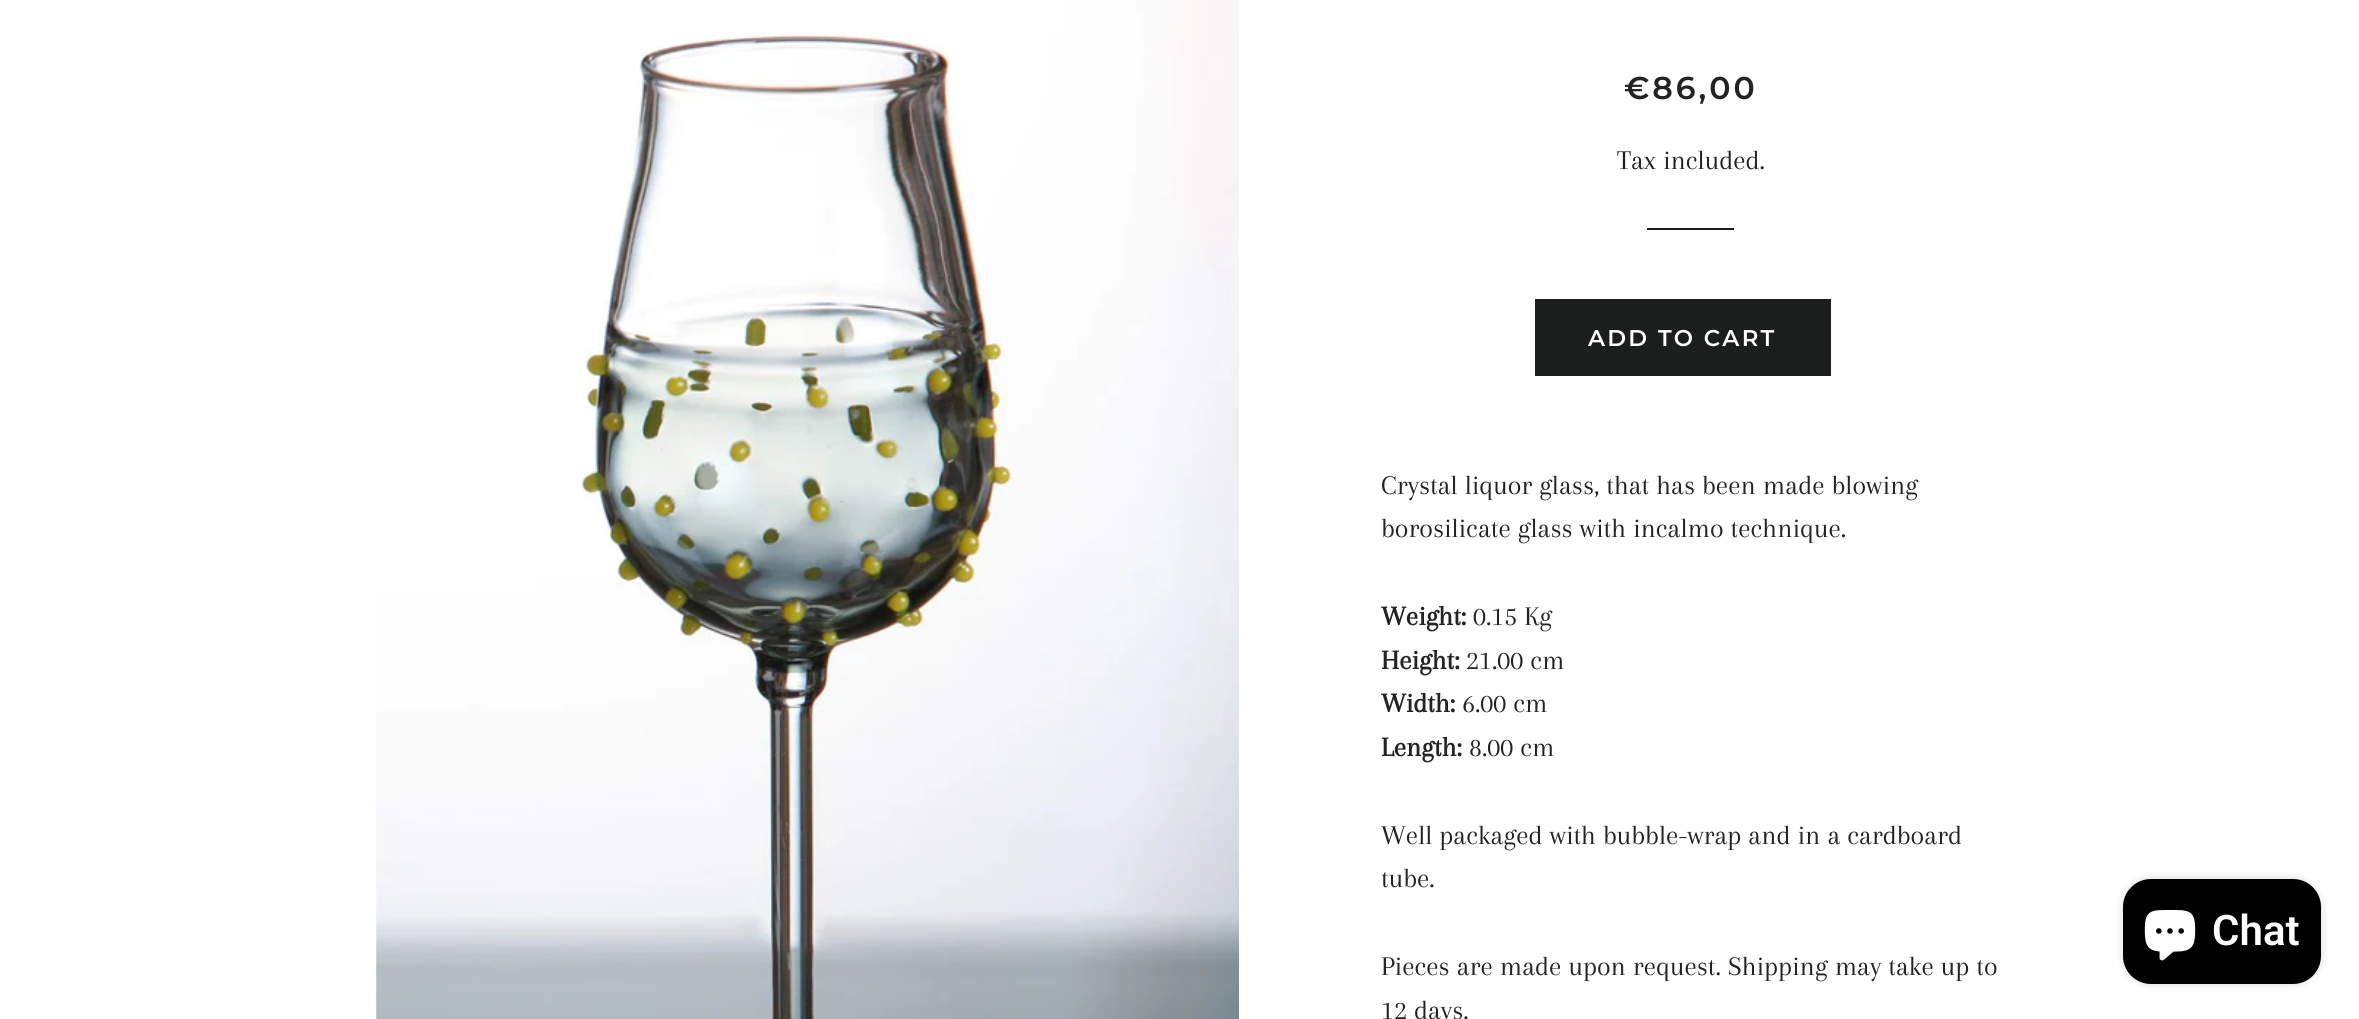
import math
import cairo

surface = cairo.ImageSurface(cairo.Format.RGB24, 2359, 1019)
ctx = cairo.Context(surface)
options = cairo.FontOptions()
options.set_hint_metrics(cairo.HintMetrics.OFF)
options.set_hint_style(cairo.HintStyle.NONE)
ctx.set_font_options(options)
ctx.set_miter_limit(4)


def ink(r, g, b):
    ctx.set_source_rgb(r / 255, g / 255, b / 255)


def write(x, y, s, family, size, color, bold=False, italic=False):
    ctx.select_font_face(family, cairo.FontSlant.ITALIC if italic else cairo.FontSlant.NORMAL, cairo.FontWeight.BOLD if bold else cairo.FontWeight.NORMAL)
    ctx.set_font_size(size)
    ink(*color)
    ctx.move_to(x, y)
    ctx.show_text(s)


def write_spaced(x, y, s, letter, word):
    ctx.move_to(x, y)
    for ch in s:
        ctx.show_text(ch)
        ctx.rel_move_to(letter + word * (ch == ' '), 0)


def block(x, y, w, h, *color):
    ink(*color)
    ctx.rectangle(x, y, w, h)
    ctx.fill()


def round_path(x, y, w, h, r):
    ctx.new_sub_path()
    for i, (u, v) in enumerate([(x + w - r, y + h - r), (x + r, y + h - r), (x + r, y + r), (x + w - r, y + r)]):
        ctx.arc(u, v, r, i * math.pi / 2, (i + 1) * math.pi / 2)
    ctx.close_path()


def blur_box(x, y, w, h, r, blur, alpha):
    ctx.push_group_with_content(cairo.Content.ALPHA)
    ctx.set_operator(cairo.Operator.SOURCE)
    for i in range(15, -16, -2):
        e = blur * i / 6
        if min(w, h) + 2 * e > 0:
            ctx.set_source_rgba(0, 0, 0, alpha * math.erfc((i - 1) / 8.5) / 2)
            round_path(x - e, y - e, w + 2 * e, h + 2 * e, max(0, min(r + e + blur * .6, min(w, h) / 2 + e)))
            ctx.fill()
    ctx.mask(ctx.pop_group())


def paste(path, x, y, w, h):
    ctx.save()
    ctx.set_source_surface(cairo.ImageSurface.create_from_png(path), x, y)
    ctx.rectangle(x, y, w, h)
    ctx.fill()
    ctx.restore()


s1 = dict(family="Arapey", size=28, color=(34, 35, 35))
s2 = dict(family="Arapey", size=28, color=(34, 35, 35), bold=True)
s3 = dict(family="Roboto SemiBold", size=42, color=(255, 255, 255))

ink(255, 255, 255)
ctx.paint()
paste("pic1.png", 376, 0, 863, 1019)
ctx.select_font_face("Montserrat SemiBold")
ctx.set_font_size(31.5)
ink(34, 35, 35)
write_spaced(1624, 99, "€86,00", 3, 0)
write(1617, 169, "Tax included.", **s1)
block(1647, 228, 87, 2, 28, 29, 29)
block(1535, 299, 296, 77, 28, 29, 29)
ctx.select_font_face("Montserrat SemiBold")
ctx.set_font_size(22.75)
ink(255, 255, 255)
write_spaced(1588, 346, "ADD TO CART", 2.25, 0)
write(1381, 494, "Crystal liquor glass, that has been made blowing", **s1)
write(1381, 537, "borosilicate glass with incalmo technique.", **s1)
write(1381, 625, "Weight:", **s2)
write(1473, 625, "0.15 Kg", **s1)
write(1381, 669, "Height:", **s2)
write(1466, 669, "21.00 cm", **s1)
write(1381, 712, "Width:", **s2)
write(1462, 712, "6.00 cm", **s1)
write(1381, 756, "Length:", **s2)
write(1469, 756, "8.00 cm", **s1)
write(1381, 844, "Well packaged with bubble-wrap and in a cardboard", **s1)
write(1381, 887, "tube.", **s1)
write(1381, 975, "Pieces are made upon request. Shipping may take up to", **s1)
write(1381, 1019, "12 days.", **s1)
ink(0, 0, 0)
blur_box(2123, 879, 198, 105, 28, 4.5, 0.15)
ink(0, 0, 0)
round_path(2123, 879, 198, 105, 28)
ctx.fill()
paste("pic2.png", 2144, 910, 52, 51)
write(2212, 945, "Chat", **s3)
surface.write_to_png("screenshot.png")
